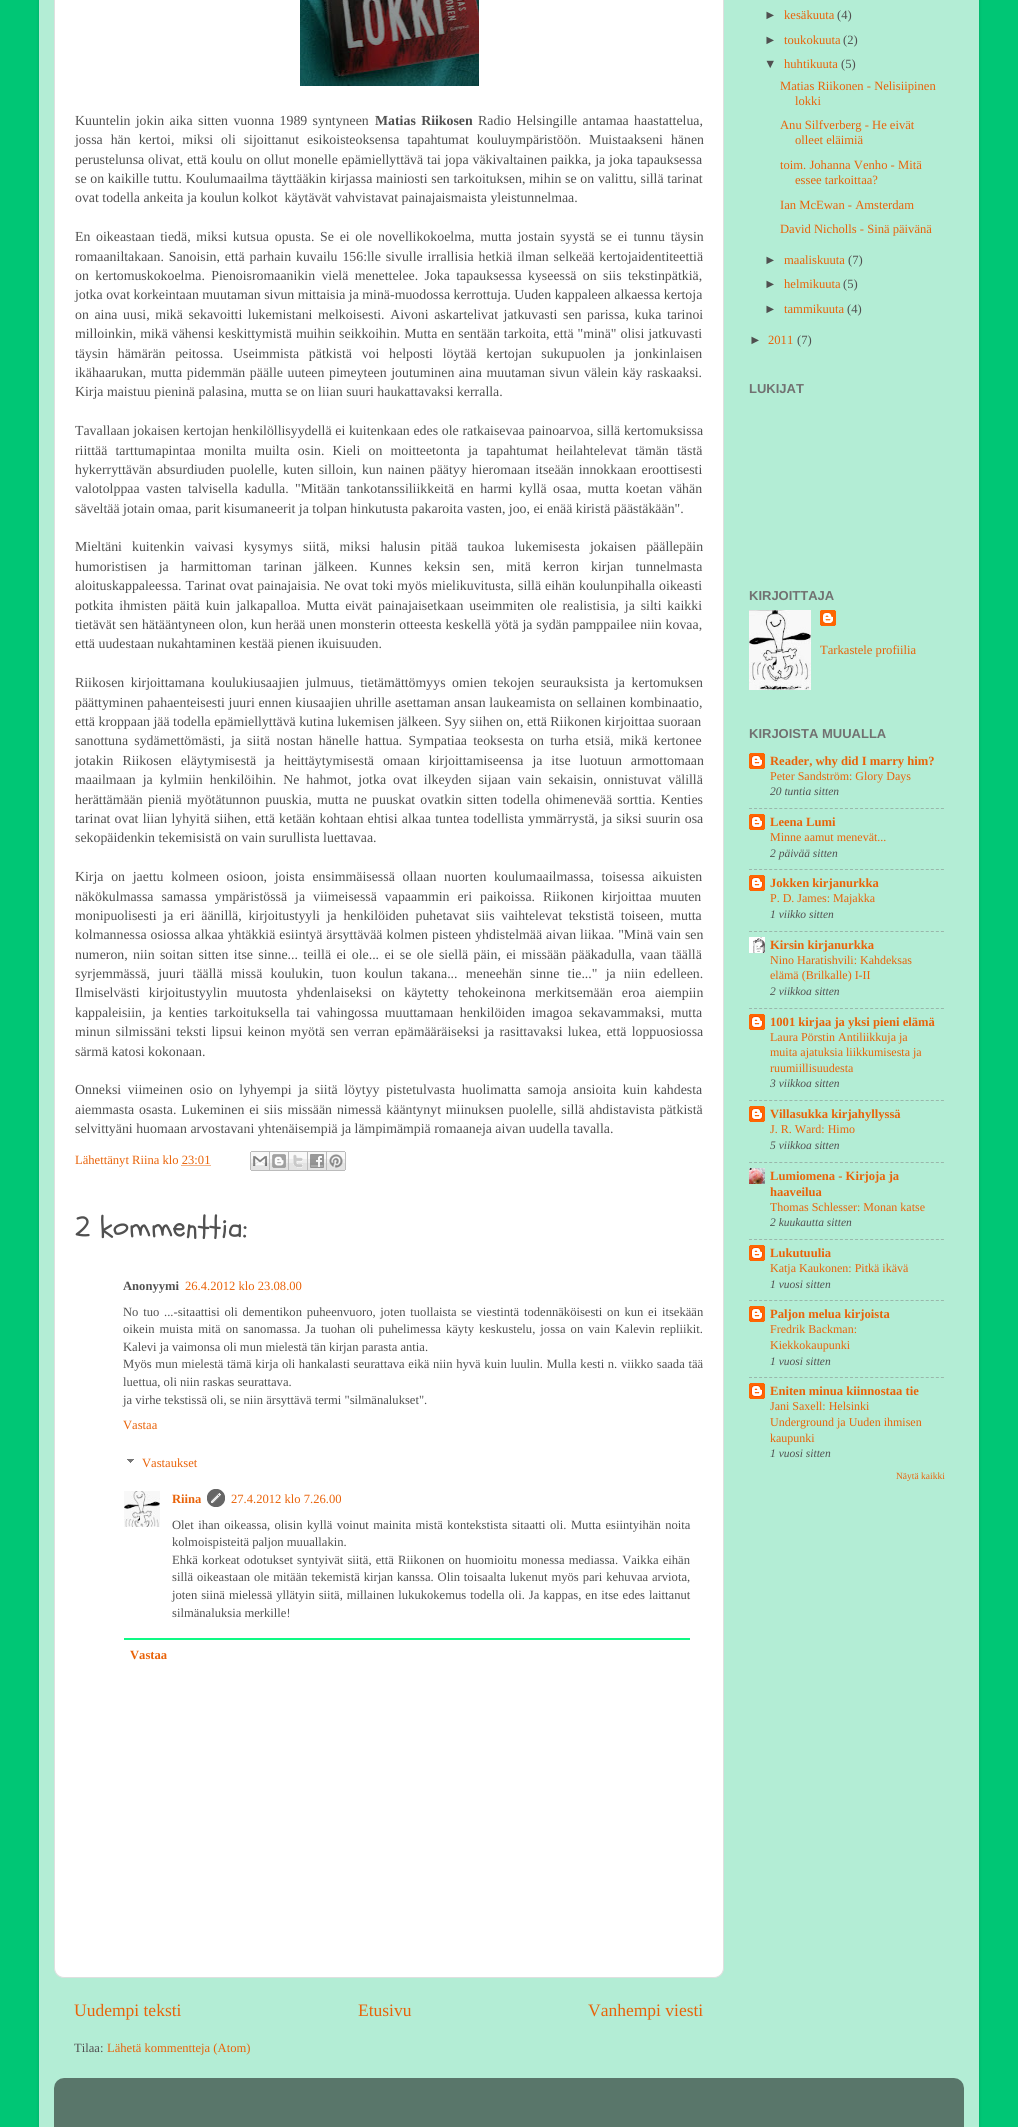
import math
import cairo

surface = cairo.ImageSurface(cairo.Format.RGB24, 1018, 2127)
ctx = cairo.Context(surface)
options = cairo.FontOptions()
options.set_hint_metrics(cairo.HintMetrics.OFF)
options.set_hint_style(cairo.HintStyle.NONE)
ctx.set_font_options(options)
ctx.set_miter_limit(4)


def ink(r, g, b):
    ctx.set_source_rgb(r / 255, g / 255, b / 255)


def write(x, y, s, family, size, color, bold=False, italic=False):
    ctx.select_font_face(family, cairo.FontSlant.ITALIC if italic else cairo.FontSlant.NORMAL, cairo.FontWeight.BOLD if bold else cairo.FontWeight.NORMAL)
    ctx.set_font_size(size)
    ink(*color)
    ctx.move_to(x, y)
    ctx.show_text(s)


def write_spaced(x, y, s, letter, word):
    ctx.move_to(x, y)
    for ch in s:
        ctx.show_text(ch)
        ctx.rel_move_to(letter + word * (ch == ' '), 0)


def block(x, y, w, h, *color):
    ink(*color)
    ctx.rectangle(x, y, w, h)
    ctx.fill()


def round_path(x, y, w, h, r):
    ctx.new_sub_path()
    for i, (u, v) in enumerate([(x + w - r, y + h - r), (x + r, y + h - r), (x + r, y + r), (x + w - r, y + r)]):
        ctx.arc(u, v, r, i * math.pi / 2, (i + 1) * math.pi / 2)
    ctx.close_path()


def blur_box(x, y, w, h, r, blur, alpha):
    ctx.push_group_with_content(cairo.Content.ALPHA)
    ctx.set_operator(cairo.Operator.SOURCE)
    for i in range(15, -16, -2):
        e = blur * i / 6
        if min(w, h) + 2 * e > 0:
            ctx.set_source_rgba(0, 0, 0, alpha * math.erfc((i - 1) / 8.5) / 2)
            round_path(x - e, y - e, w + 2 * e, h + 2 * e, max(0, min(r + e + blur * .6, min(w, h) / 2 + e)))
            ctx.fill()
    ctx.mask(ctx.pop_group())


def paste(path, x, y, w, h):
    ctx.save()
    ctx.set_source_surface(cairo.ImageSurface.create_from_png(path), x, y)
    ctx.rectangle(x, y, w, h)
    ctx.fill()
    ctx.restore()


s1 = dict(family="Liberation Serif", size=13.85, color=(80, 80, 80))
s2 = dict(family="Liberation Serif", size=12.6, color=(233, 99, 9))
s3 = dict(family="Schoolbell", size=30, color=(80, 80, 80))
s4 = dict(family="Liberation Serif", size=12.6, color=(80, 80, 80), bold=True)
s5 = dict(family="Liberation Serif", size=12.6, color=(80, 80, 80))
s6 = dict(family="Liberation Serif", size=12.6, color=(233, 99, 9), bold=True)
s7 = dict(family="Liberation Serif", size=17.5, color=(233, 99, 9))
s8 = dict(family="Liberation Sans", size=12.6, color=(80, 80, 80))
s9 = dict(family="Liberation Sans", size=13, color=(113, 113, 113), bold=True)
s10 = dict(family="Liberation Serif", size=12, color=(233, 99, 9))
s11 = dict(family="Liberation Serif", size=11.5, color=(80, 80, 80), italic=True)
s12 = dict(family="Liberation Serif", size=9.5, color=(233, 99, 9))

ink(0, 198, 117)
ctx.paint()
ink(0, 0, 0)
blur_box(39, -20, 940, 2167, 15, 1.5, 0.15)
block(39, 0, 940, 2127, 179, 237, 213)
ink(255, 255, 255)
round_path(54.5, -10.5, 669, 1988, 9.5)
ctx.fill_preserve()
ink(223, 223, 223)
ctx.set_line_width(1)
ctx.stroke()
paste("pic1.png", 300, 0, 179, 86)
ctx.select_font_face("Liberation Serif")
ctx.set_font_size(13.85)
ink(80, 80, 80)
write_spaced(75, 125, "Kuuntelin jokin aika sitten vuonna 1989 syntyneen", 0, 1.9)
ctx.select_font_face("Liberation Serif", cairo.FontSlant.NORMAL, cairo.FontWeight.BOLD)
write_spaced(375, 125, "Matias Riikosen", 0, 1.9)
ctx.select_font_face("Liberation Serif")
write_spaced(478, 125, "Radio Helsingille antamaa haastattelua,", 0, 1.9)
write_spaced(75, 144, "jossa hän kertoi, miksi oli sijoittanut esikoisteoksensa tapahtumat kouluympäristöön. Muistaakseni hänen", 0, 4.5)
write_spaced(75, 164, "perustelunsa olivat, että koulu on ollut monelle epämiellyttävä tai jopa väkivaltainen paikka, ja joka tapauksessa", 0, 0.4)
write_spaced(75, 183, "se on kaikille tuttu. Koulumaailma täyttääkin kirjassa mainiosti sen tarkoituksen, mihin se on valittu, sillä tarinat", 0, 0.25)
write(75, 202, "ovat todella ankeita ja koulun kolkot  käytävät vahvistavat painajaismaista yleistunnelmaa.", **s1)
write_spaced(75, 241, "En oikeastaan tiedä, miksi kutsua opusta. Se ei ole novellikokoelma, mutta jostain syystä se ei tunnu täysin", 0, 2.25)
write_spaced(75, 261, "romaaniltakaan. Sanoisin, että parhain kuvailu 156:lle sivulle irrallisia hetkiä ilman selkeää kertojaidentiteettiä", 0, 1.4)
write_spaced(75, 280, "on kertomuskokoelma. Pienoisromaanikin vielä menettelee. Joka tapauksessa kyseessä on siis tekstinpätkiä,", 0, 2.9)
write(75, 299, "jotka ovat korkeintaan muutaman sivun mittaisia ja minä-muodossa kerrottuja. Uuden kappaleen alkaessa kertoja", **s1)
write_spaced(75, 319, "on aina uusi, mikä sekavoitti lukemistani melkoisesti. Aivoni askartelivat jatkuvasti sen parissa, kuka tarinoi", 0, 2.1)
write_spaced(75, 338, "milloinkin, mikä vähensi keskittymistä muihin seikkoihin. Mutta en sentään tarkoita, että \"minä\" olisi jatkuvasti", 0, 0.5)
write_spaced(75, 358, "täysin hämärän peitossa. Useimmista pätkistä voi helposti löytää kertojan sukupuolen ja jonkinlaisen", 0, 6.25)
write_spaced(75, 377, "ikähaarukan, mutta pidemmän päälle uuteen pimeyteen joutuminen aina muutaman sivun välein käy raskaaksi.", 0, 1.1)
write(75, 396, "Kirja maistuu pieninä palasina, mutta se on liian suuri haukattavaksi kerralla.", **s1)
write_spaced(75, 435, "Tavallaan jokaisen kertojan henkilöllisyydellä ei kuitenkaan edes ole ratkaisevaa painoarvoa, sillä kertomuksissa", 0, 0.25)
write_spaced(75, 455, "riittää tarttumapintaa monilta muilta osin. Kieli on moitteetonta ja tapahtumat heilahtelevat tämän tästä", 0, 4.75)
write_spaced(75, 474, "hykerryttävän absurdiuden puolelle, kuten silloin, kun nainen päätyy hieromaan itseään innokkaan eroottisesti", 0, 1.6)
write_spaced(75, 493, "valotolppaa vasten talvisella kadulla. \"Mitään tankotanssiliikkeitä en harmi kyllä osaa, mutta koetan vähän", 0, 3)
write(75, 513, "säveltää jotain omaa, parit kisumaneerit ja tolpan hinkutusta pakaroita vasten, joo, ei enää kiristä päästäkään\".", **s1)
write_spaced(75, 551, "Mieltäni kuitenkin vaivasi kysymys siitä, miksi halusin pitää taukoa lukemisesta jokaisen päällepäin", 0, 6.6)
write_spaced(75, 571, "humoristisen ja harmittoman tarinan jälkeen. Kunnes keksin sen, mitä kerron kirjan tunnelmasta", 0, 8.6)
write_spaced(75, 590, "aloituskappaleessa. Tarinat ovat painajaisia. Ne ovat toki myös mielikuvitusta, sillä eihän koulunpihalla oikeasti", 0, 0.5)
write_spaced(75, 610, "potkita ihmisten päitä kuin jalkapalloa. Mutta eivät painajaisetkaan useimmiten ole realistisia, ja silti kaikki", 0, 2.4)
write_spaced(75, 629, "tietävät sen hätääntyneen olon, kun herää unen monsterin otteesta keskellä yötä ja sydän pamppailee niin kovaa,", 0, 0.4)
write(75, 648, "että uudestaan nukahtaminen kestää pienen ikuisuuden.", **s1)
write_spaced(75, 687, "Riikosen kirjoittamana koulukiusaajien julmuus, tietämättömyys omien tekojen seurauksista ja kertomuksen", 0, 3.1)
write_spaced(75, 707, "päättyminen pahaenteisesti juuri ennen kiusaajien uhrille asettaman ansan laukeamista on sellainen kombinaatio,", 0, 0.25)
write(75, 726, "että kroppaan jää todella epämiellyttävä kutina lukemisen jälkeen. Syy siihen on, että Riikonen kirjoittaa suoraan", **s1)
write_spaced(75, 745, "sanottuna sydämettömästi, ja siitä nostan hänelle hattua. Sympatiaa teoksesta on turha etsiä, mikä kertonee", 0, 2.75)
write_spaced(75, 765, "jotakin Riikosen eläytymisestä ja heittäytymisestä omaan kirjoittamiseensa ja itse luotuun armottomaan", 0, 5.5)
write_spaced(75, 784, "maailmaan ja kylmiin henkilöihin. Ne hahmot, jotka ovat ilkeyden sijaan vain sekaisin, onnistuvat välillä", 0, 3.5)
write_spaced(75, 804, "herättämään pieniä myötätunnon puuskia, mutta ne puuskat ovatkin sitten todella ohimenevää sorttia. Kenties", 0, 1.75)
write_spaced(75, 823, "tarinat ovat liian lyhyitä siihen, että ketään kohtaan ehtisi alkaa tuntea todellista ymmärrystä, ja siksi suurin osa", 0, 0.75)
write(75, 842, "sekopäidenkin tekemisistä on vain surullista luettavaa.", **s1)
write_spaced(75, 881, "Kirja on jaettu kolmeen osioon, joista ensimmäisessä ollaan nuorten koulumaailmassa, toisessa aikuisten", 0, 4.25)
write_spaced(75, 901, "näkökulmassa samassa ympäristössä ja viimeisessä vapaammin eri paikoissa. Riikonen kirjoittaa muuten", 0, 4.5)
write_spaced(75, 920, "monipuolisesti ja eri äänillä, kirjoitustyyli ja henkilöiden puhetavat siis vaihtelevat tekstistä toiseen, mutta", 0, 3.25)
write_spaced(75, 939, "kolmannessa osiossa alkaa yhtäkkiä esiintyä ärsyttävää kolmen pisteen yhdistelmää aivan liikaa. \"Minä vain sen", 0, 0.5)
write_spaced(75, 959, "numeron, niin soitan sitten itse sinne... teillä ei ole... ei se ole siellä päin, ei missään pääkadulla, vaan täällä", 0, 1.9)
write_spaced(75, 978, "syrjemmässä, juuri täällä missä koulukin, tuon koulun takana... meneehän sinne tie...\" ja niin edelleen.", 0, 4.75)
write_spaced(75, 997, "Ilmiselvästi kirjoitustyylin muutosta yhdenlaiseksi on käytetty tehokeinona merkitsemään eroa aiempiin", 0, 5.75)
write_spaced(75, 1017, "kappaleisiin, ja kenties tarkoituksella tai vahingossa muuttamaan henkilöiden imagoa sekavammaksi, mutta", 0, 3.1)
write_spaced(75, 1036, "minun silmissäni teksti lipsui keinon myötä sen verran epämääräiseksi ja rasittavaksi lukea, että loppuosiossa", 0, 1.75)
write(75, 1056, "särmä katosi kokonaan.", **s1)
write_spaced(75, 1094, "Onneksi viimeinen osio on lyhyempi ja siitä löytyy pistetulvasta huolimatta samoja ansioita kuin kahdesta", 0, 3)
write_spaced(75, 1114, "aiemmasta osasta. Lukeminen ei siis missään nimessä kääntynyt miinuksen puolelle, sillä ahdistavista pätkistä", 0, 1.4)
write(75, 1133, "selvittyäni huomaan arvostavani yhtenäisempiä ja lämpimämpiä romaaneja aivan uudella tavalla.", **s1)
write(75, 1164, "Lähettänyt Riina klo 23:01", **s2)
paste("pic2.png", 250, 1151, 20, 20)
paste("pic3.png", 270, 1151, 19, 20)
paste("pic4.png", 289, 1151, 19, 20)
paste("pic5.png", 308, 1151, 19, 20)
paste("pic6.png", 327, 1151, 19, 20)
ctx.new_path()
ctx.move_to(181.5, 1165.5)
ctx.line_to(210.5, 1165.5)
ctx.set_dash([1, 1])
ctx.stroke()
write(75, 1237, "2 kommenttia:", **s3)
write(123, 1290, "Anonyymi", **s4)
write(185, 1290, "26.4.2012 klo 23.08.00", **s2)
ink(80, 80, 80)
write_spaced(123, 1316, "No tuo ...-sitaattisi oli dementikon puheenvuoro, joten tuollaista se viestintä todennäköisesti on kun ei itsekään", 0, 1.6)
write_spaced(123, 1333, "oikein muista mitä on sanomassa. Ja tuohan oli puhelimessa käyty keskustelu, jossa on vain Kalevin repliikit.", 0, 1.9)
write(123, 1351, "Kalevi ja vaimonsa oli mun mielestä tän kirjan parasta antia.", **s5)
write_spaced(123, 1368, "Myös mun mielestä tämä kirja oli hankalasti seurattava eikä niin hyvä kuin luulin. Mulla kesti n. viikko saada tää", 0, 0.5)
write(123, 1386, "luettua, oli niin raskas seurattava.", **s5)
write(123, 1404, "ja virhe tekstissä oli, se niin ärsyttävä termi \"silmänalukset\".", **s5)
write(123, 1429, "Vastaa", **s2)
paste("pic7.png", 127, 1459, 7, 4)
write(142, 1467, "Vastaukset", **s2)
paste("pic8.png", 124, 1491, 36, 36)
write(172, 1503, "Riina", **s6)
paste("pic9.png", 207, 1489, 18, 18)
write(231, 1503, "27.4.2012 klo 7.26.00", **s2)
ink(80, 80, 80)
write_spaced(172, 1529, "Olet ihan oikeassa, olisin kyllä voinut mainita mistä kontekstista sitaatti oli. Mutta esiintyihän noita", 0, 1.3)
write(172, 1546, "kolmoispisteitä paljon muuallakin.", **s5)
write_spaced(172, 1564, "Ehkä korkeat odotukset syntyivät siitä, että Riikonen on huomioitu monessa mediassa. Vaikka eihän", 0, 1)
write_spaced(172, 1581, "sillä oikeastaan ole mitään tekemistä kirjan kanssa. Olin toisaalta lukenut myös pari kehuvaa arviota,", 0, 0.75)
write_spaced(172, 1599, "joten siinä mielessä yllätyin siitä, millainen lukukokemus todella oli. Ja kappas, en itse edes laittanut", 0, 0.8)
write(172, 1617, "silmänaluksia merkille!", **s5)
block(124, 1638, 566, 2, 14, 250, 132)
write(130, 1659, "Vastaa", **s6)
write(74, 2016, "Uudempi teksti", **s7)
write(358, 2016, "Etusivu", **s7)
write(588, 2016, "Vanhempi viesti", **s7)
write(74, 2052, "Tilaa:", **s5)
write(107, 2052, "Lähetä kommentteja (Atom)", **s2)
write(764, 19, "►", **s8)
write(784, 19, "kesäkuuta", **s2)
write(837, 19, "(4)", **s5)
write(764, 44, "►", **s8)
write(784, 44, "toukokuuta", **s2)
write(843, 44, "(2)", **s5)
write(764, 68, "▼", **s8)
write(784, 68, "huhtikuuta", **s2)
write(841, 68, "(5)", **s5)
write(780, 90, "Matias Riikonen - Nelisiipinen", **s2)
write(795, 105, "lokki", **s2)
write(780, 129, "Anu Silfverberg - He eivät", **s2)
write(795, 144, "olleet eläimiä", **s2)
write(780, 169, "toim. Johanna Venho - Mitä", **s2)
write(795, 184, "essee tarkoittaa?", **s2)
write(780, 209, "Ian McEwan - Amsterdam", **s2)
write(780, 233, "David Nicholls - Sinä päivänä", **s2)
write(764, 264, "►", **s8)
write(784, 264, "maaliskuuta", **s2)
write(848, 264, "(7)", **s5)
write(764, 288, "►", **s8)
write(784, 288, "helmikuuta", **s2)
write(843, 288, "(5)", **s5)
write(764, 313, "►", **s8)
write(784, 313, "tammikuuta", **s2)
write(847, 313, "(4)", **s5)
write(749, 344, "►", **s8)
write(768, 344, "2011", **s2)
write(797, 344, "(7)", **s5)
write(749, 393, "LUKIJAT", **s9)
write(749, 600, "KIRJOITTAJA", **s9)
paste("pic10.png", 749, 610, 62, 80)
paste("pic11.png", 820, 610, 16, 16)
write(820, 654, "Tarkastele profiilia", **s2)
write(749, 738, "KIRJOISTA MUUALLA", **s9)
paste("pic12.png", 749, 753, 16, 16)
write(770, 765, "Reader, why did I marry him?", **s6)
write(770, 780, "Peter Sandström: Glory Days", **s10)
write(770, 795, "20 tuntia sitten", **s11)
ctx.new_path()
ctx.move_to(749, 808.5)
ctx.line_to(944, 808.5)
ink(154, 183, 171)
ctx.set_dash([3, 2.05])
ctx.stroke()
paste("pic12.png", 749, 814, 16, 16)
write(770, 826, "Leena Lumi", **s6)
write(770, 841, "Minne aamut menevät...", **s10)
write(770, 857, "2 päivää sitten", **s11)
ctx.new_path()
ctx.move_to(749, 869.5)
ctx.line_to(944, 869.5)
ink(154, 183, 171)
ctx.stroke()
paste("pic12.png", 749, 875, 16, 16)
write(770, 887, "Jokken kirjanurkka", **s6)
write(770, 902, "P. D. James: Majakka", **s10)
write(770, 918, "1 viikko sitten", **s11)
ctx.new_path()
ctx.move_to(749, 931.5)
ctx.line_to(944, 931.5)
ink(154, 183, 171)
ctx.stroke()
paste("pic13.png", 749, 937, 16, 16)
write(770, 949, "Kirsin kirjanurkka", **s6)
write(770, 964, "Nino Haratishvili: Kahdeksas", **s10)
write(770, 979, "elämä (Brilkalle) I-II", **s10)
write(770, 995, "2 viikkoa sitten", **s11)
ctx.new_path()
ctx.move_to(749, 1008.5)
ctx.line_to(944, 1008.5)
ink(154, 183, 171)
ctx.stroke()
paste("pic12.png", 749, 1014, 16, 16)
write(770, 1026, "1001 kirjaa ja yksi pieni elämä", **s6)
write(770, 1041, "Laura Pörstin Antiliikkuja ja", **s10)
write(770, 1056, "muita ajatuksia liikkumisesta ja", **s10)
write(770, 1072, "ruumiillisuudesta", **s10)
write(770, 1087, "3 viikkoa sitten", **s11)
ctx.new_path()
ctx.move_to(749, 1100.5)
ctx.line_to(944, 1100.5)
ink(154, 183, 171)
ctx.stroke()
paste("pic12.png", 749, 1106, 16, 16)
write(770, 1118, "Villasukka kirjahyllyssä", **s6)
write(770, 1133, "J. R. Ward: Himo", **s10)
write(770, 1149, "5 viikkoa sitten", **s11)
ctx.new_path()
ctx.move_to(749, 1162.5)
ctx.line_to(944, 1162.5)
ink(154, 183, 171)
ctx.stroke()
paste("pic14.png", 749, 1168, 16, 16)
write(770, 1180, "Lumiomena - Kirjoja ja", **s6)
write(770, 1196, "haaveilua", **s6)
write(770, 1211, "Thomas Schlesser: Monan katse", **s10)
write(770, 1226, "2 kuukautta sitten", **s11)
ctx.new_path()
ctx.move_to(749, 1239.5)
ctx.line_to(944, 1239.5)
ink(154, 183, 171)
ctx.stroke()
paste("pic12.png", 749, 1245, 16, 16)
write(770, 1257, "Lukutuulia", **s6)
write(770, 1272, "Katja Kaukonen: Pitkä ikävä", **s10)
write(770, 1288, "1 vuosi sitten", **s11)
ctx.new_path()
ctx.move_to(749, 1300.5)
ctx.line_to(944, 1300.5)
ink(154, 183, 171)
ctx.stroke()
paste("pic12.png", 749, 1306, 16, 16)
write(770, 1318, "Paljon melua kirjoista", **s6)
write(770, 1333, "Fredrik Backman:", **s10)
write(770, 1349, "Kiekkokaupunki", **s10)
write(770, 1365, "1 vuosi sitten", **s11)
ctx.new_path()
ctx.move_to(749, 1377.5)
ctx.line_to(944, 1377.5)
ink(154, 183, 171)
ctx.stroke()
paste("pic12.png", 749, 1383, 16, 16)
write(770, 1395, "Eniten minua kiinnostaa tie", **s6)
write(770, 1410, "Jani Saxell: Helsinki", **s10)
write(770, 1426, "Underground ja Uuden ihmisen", **s10)
write(770, 1442, "kaupunki", **s10)
write(770, 1457, "1 vuosi sitten", **s11)
write(896, 1479, "Näytä kaikki", **s12)
paste("pic15.png", 54, 2078, 910, 49)
surface.write_to_png("screenshot.png")
